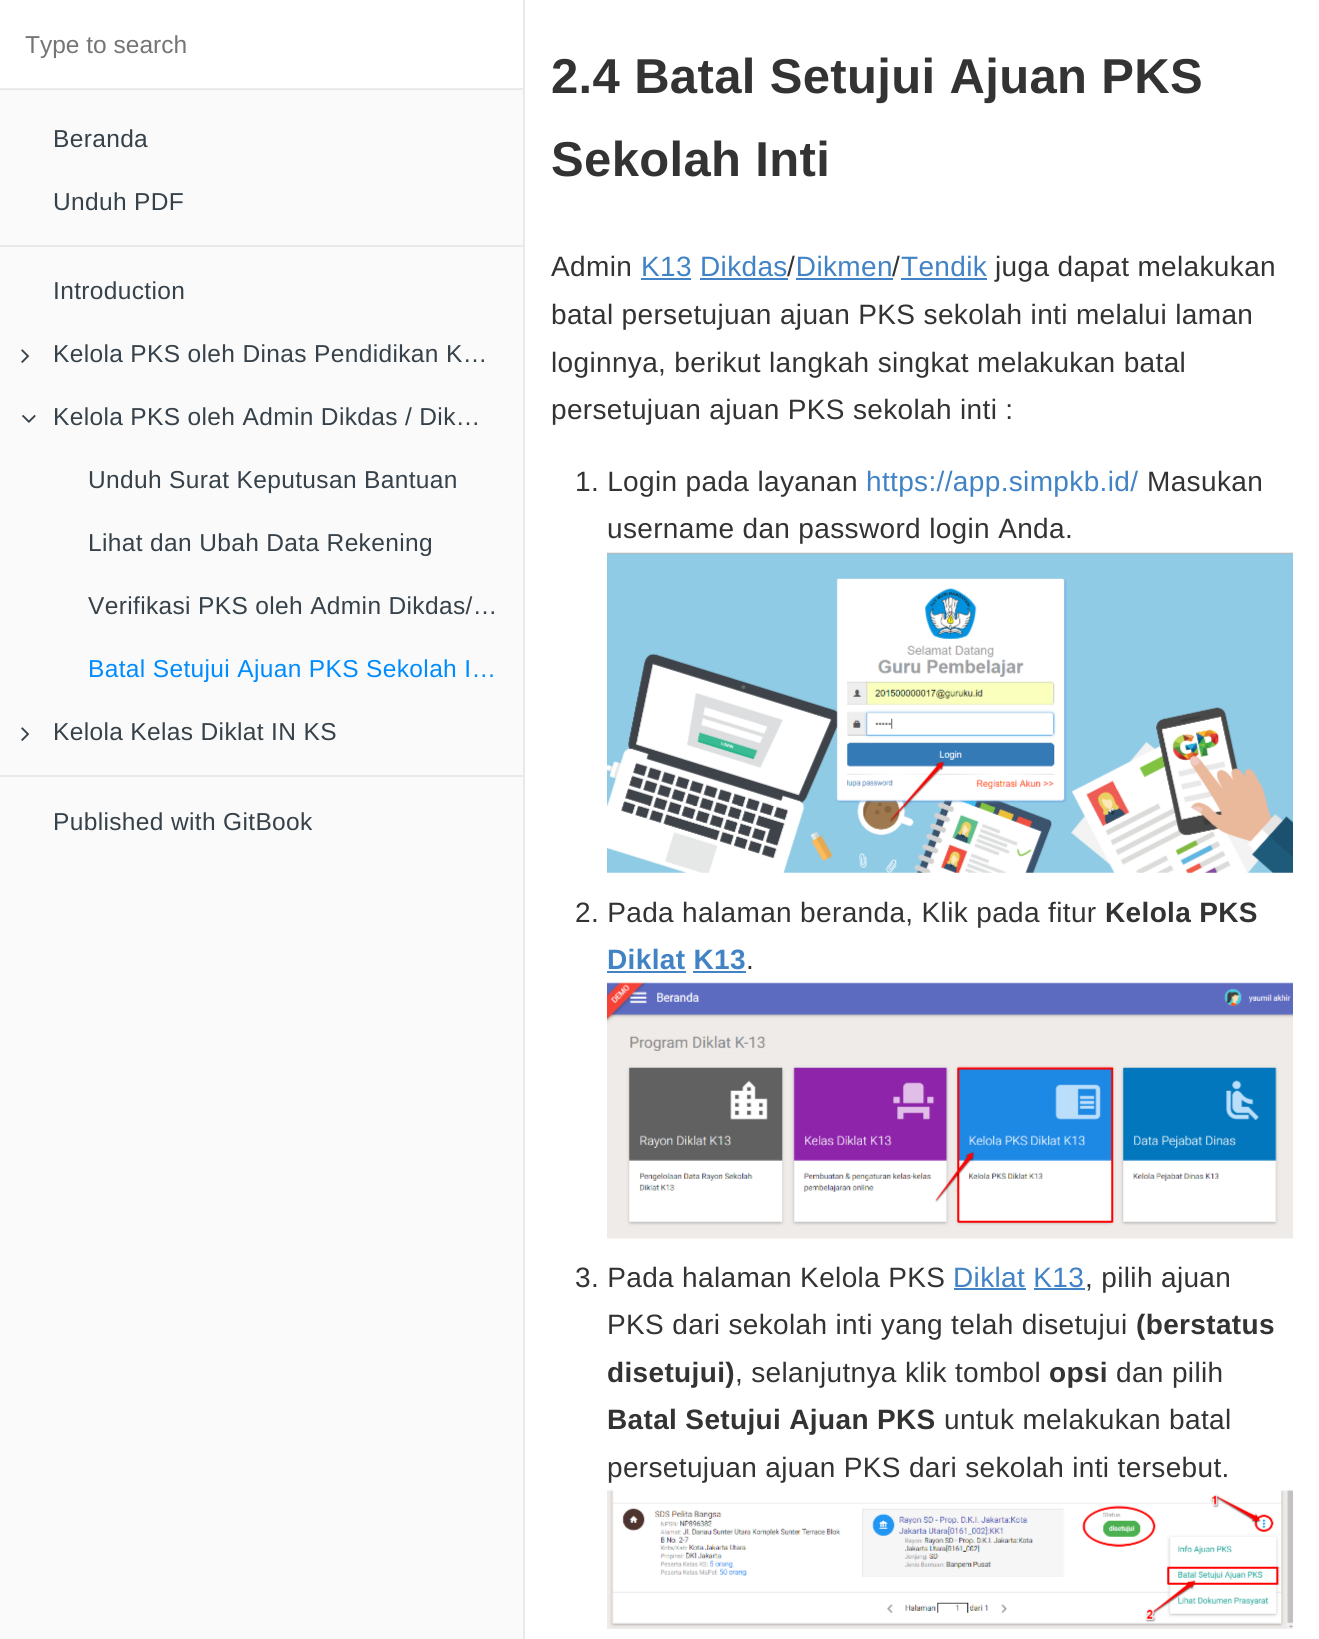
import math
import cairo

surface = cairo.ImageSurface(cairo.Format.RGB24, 1319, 1639)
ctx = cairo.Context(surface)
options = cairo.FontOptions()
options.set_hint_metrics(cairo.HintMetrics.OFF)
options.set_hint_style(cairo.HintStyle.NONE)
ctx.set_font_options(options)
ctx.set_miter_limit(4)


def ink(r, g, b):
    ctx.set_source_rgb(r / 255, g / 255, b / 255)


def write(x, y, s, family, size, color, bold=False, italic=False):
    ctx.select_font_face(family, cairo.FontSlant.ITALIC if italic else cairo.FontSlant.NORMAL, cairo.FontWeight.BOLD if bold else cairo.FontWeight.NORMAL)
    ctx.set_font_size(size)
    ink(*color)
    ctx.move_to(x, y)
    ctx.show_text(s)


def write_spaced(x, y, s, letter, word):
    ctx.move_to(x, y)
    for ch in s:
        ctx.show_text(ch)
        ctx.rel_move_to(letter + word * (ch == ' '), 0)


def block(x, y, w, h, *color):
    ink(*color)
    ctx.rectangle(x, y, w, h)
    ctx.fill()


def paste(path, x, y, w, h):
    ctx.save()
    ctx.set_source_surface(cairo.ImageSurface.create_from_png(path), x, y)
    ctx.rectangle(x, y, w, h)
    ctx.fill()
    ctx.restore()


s1 = dict(family="Liberation Sans", size=24.5, color=(117, 117, 117))

ink(255, 255, 255)
ctx.paint()
block(0, 90, 523, 1549, 250, 250, 250)
block(0, 89, 523, 1, 232, 232, 232)
block(523, 0, 2, 1639, 233, 233, 233)
block(0, 88, 523, 1, 237, 237, 237)
write(25, 53, "Type to search", **s1)
ink(54, 65, 73)
write_spaced(53, 147, "Beranda", 0.35, 0)
write_spaced(53, 210, "Unduh PDF", 0.35, 0)
block(0, 245, 523, 2, 233, 233, 233)
ink(54, 65, 73)
write_spaced(53, 299, "Introduction", 0.35, 0)
paste("pic1.png", 21, 349, 9, 14)
write_spaced(53, 362, "Kelola PKS oleh Dinas Pendidikan K…", 0.35, 0)
paste("pic2.png", 22, 415, 14, 8)
write_spaced(53, 425, "Kelola PKS oleh Admin Dikdas / Dik…", 0.35, 0)
write_spaced(88, 488, "Unduh Surat Keputusan Bantuan", 0.35, 0)
write_spaced(88, 551, "Lihat dan Ubah Data Rekening", 0.35, 0)
write_spaced(88, 614, "Verifikasi PKS oleh Admin Dikdas/…", 0.35, 0)
ink(0, 140, 255)
write_spaced(88, 677, "Batal Setujui Ajuan PKS Sekolah I…", 0.35, 0)
paste("pic1.png", 21, 727, 9, 14)
ink(54, 65, 73)
write_spaced(53, 740, "Kelola Kelas Diklat IN KS", 0.35, 0)
block(0, 775, 523, 2, 233, 233, 233)
ink(54, 65, 73)
write_spaced(53, 830, "Published with GitBook", 0.35, 0)
ctx.select_font_face("Liberation Sans", cairo.FontSlant.NORMAL, cairo.FontWeight.BOLD)
ctx.set_font_size(49)
ink(51, 51, 51)
write_spaced(551, 93, "2.4 Batal Setujui Ajuan PKS", 0.35, 0)
write_spaced(551, 176, "Sekolah Inti", 0.35, 0)
ctx.select_font_face("Liberation Sans")
ctx.set_font_size(28)
write_spaced(551, 276, "Admin", 0.35, 0)
ink(65, 131, 196)
write_spaced(641, 276, "K13 Dikdas Dikmen Tendik", 0.35, 0)
block(641, 278, 50, 2, 65, 131, 196)
block(700, 278, 88, 2, 65, 131, 196)
ink(51, 51, 51)
write_spaced(787, 276, "/", 0.35, 0)
block(796, 278, 97, 2, 65, 131, 196)
ink(51, 51, 51)
write_spaced(892, 276, "/", 0.35, 0)
block(901, 278, 86, 2, 65, 131, 196)
ink(51, 51, 51)
write_spaced(995, 276, "juga dapat melakukan", 0.35, 0)
write_spaced(551, 324, "batal persetujuan ajuan PKS sekolah inti melalui laman", 0.35, 0)
write_spaced(551, 372, "loginnya, berikut langkah singkat melakukan batal", 0.35, 0)
write_spaced(551, 419, "persetujuan ajuan PKS sekolah inti :", 0.35, 0)
write_spaced(575, 491, "1. Login pada layanan", 0.35, 0)
ink(65, 131, 196)
write_spaced(866, 491, "https://app.simpkb.id/", 0.35, 0)
ink(51, 51, 51)
write_spaced(1147, 491, "Masukan", 0.35, 0)
write_spaced(607, 538, "username dan password login Anda.", 0.35, 0)
paste("pic3.png", 607, 552, 686, 321)
write_spaced(575, 922, "2. Pada halaman beranda, Klik pada fitur", 0.35, 0)
ctx.select_font_face("Liberation Sans", cairo.FontSlant.NORMAL, cairo.FontWeight.BOLD)
write_spaced(1105, 922, "Kelola PKS", 0.35, 0)
ink(65, 131, 196)
write_spaced(607, 969, "Diklat K13", 0.35, 0)
block(607, 971, 79, 2, 65, 131, 196)
block(693, 971, 53, 2, 65, 131, 196)
ctx.select_font_face("Liberation Sans")
ink(51, 51, 51)
write_spaced(746, 969, ".", 0.35, 0)
paste("pic4.png", 607, 982, 686, 257)
write_spaced(575, 1287, "3. Pada halaman Kelola PKS", 0.35, 0)
ink(65, 131, 196)
write_spaced(953, 1287, "Diklat K13", 0.35, 0)
block(954, 1288, 72, 2, 65, 131, 196)
ink(51, 51, 51)
write_spaced(1085, 1287, ", pilih ajuan", 0.35, 0)
block(1034, 1288, 51, 2, 65, 131, 196)
ink(51, 51, 51)
write_spaced(607, 1334, "PKS dari sekolah inti yang telah disetujui", 0.35, 0)
ctx.select_font_face("Liberation Sans", cairo.FontSlant.NORMAL, cairo.FontWeight.BOLD)
write_spaced(1136, 1334, "(berstatus", 0.35, 0)
write_spaced(607, 1382, "disetujui)", 0.35, 0)
ctx.select_font_face("Liberation Sans")
write_spaced(735, 1382, ", selanjutnya klik tombol", 0.35, 0)
ctx.select_font_face("Liberation Sans", cairo.FontSlant.NORMAL, cairo.FontWeight.BOLD)
write_spaced(1049, 1382, "opsi", 0.35, 0)
ctx.select_font_face("Liberation Sans")
write_spaced(1116, 1382, "dan pilih", 0.35, 0)
ctx.select_font_face("Liberation Sans", cairo.FontSlant.NORMAL, cairo.FontWeight.BOLD)
write_spaced(607, 1429, "Batal Setujui Ajuan PKS", 0.35, 0)
ctx.select_font_face("Liberation Sans")
write_spaced(944, 1429, "untuk melakukan batal", 0.35, 0)
write_spaced(607, 1477, "persetujuan ajuan PKS dari sekolah inti tersebut.", 0.35, 0)
paste("pic5.png", 607, 1489, 686, 140)
surface.write_to_png("screenshot.png")
